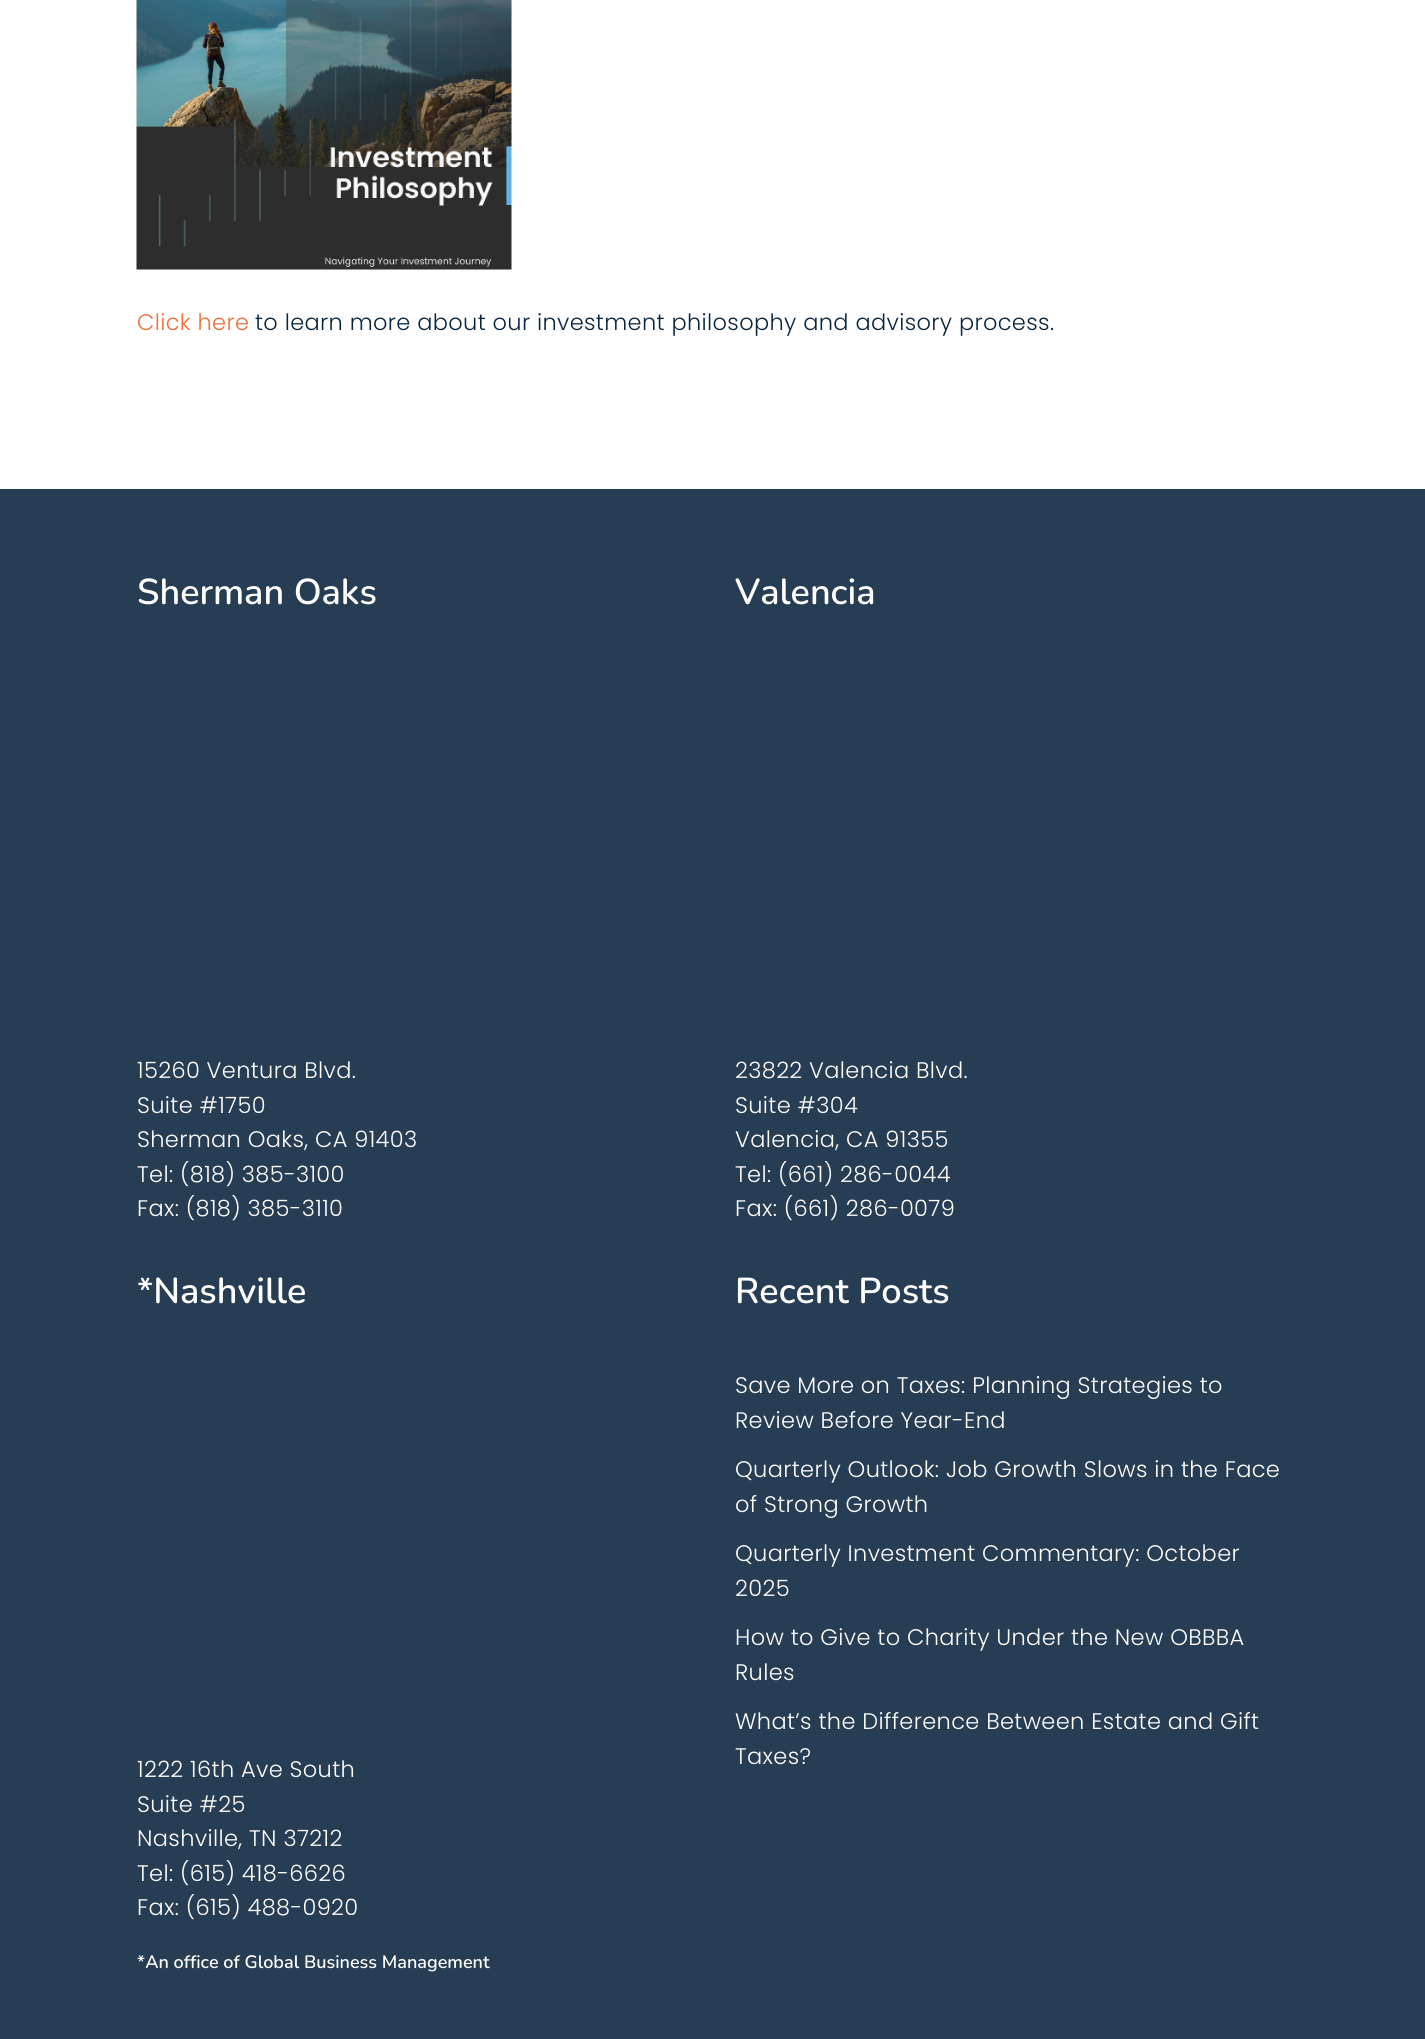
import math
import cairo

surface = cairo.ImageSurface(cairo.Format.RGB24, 1425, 2039)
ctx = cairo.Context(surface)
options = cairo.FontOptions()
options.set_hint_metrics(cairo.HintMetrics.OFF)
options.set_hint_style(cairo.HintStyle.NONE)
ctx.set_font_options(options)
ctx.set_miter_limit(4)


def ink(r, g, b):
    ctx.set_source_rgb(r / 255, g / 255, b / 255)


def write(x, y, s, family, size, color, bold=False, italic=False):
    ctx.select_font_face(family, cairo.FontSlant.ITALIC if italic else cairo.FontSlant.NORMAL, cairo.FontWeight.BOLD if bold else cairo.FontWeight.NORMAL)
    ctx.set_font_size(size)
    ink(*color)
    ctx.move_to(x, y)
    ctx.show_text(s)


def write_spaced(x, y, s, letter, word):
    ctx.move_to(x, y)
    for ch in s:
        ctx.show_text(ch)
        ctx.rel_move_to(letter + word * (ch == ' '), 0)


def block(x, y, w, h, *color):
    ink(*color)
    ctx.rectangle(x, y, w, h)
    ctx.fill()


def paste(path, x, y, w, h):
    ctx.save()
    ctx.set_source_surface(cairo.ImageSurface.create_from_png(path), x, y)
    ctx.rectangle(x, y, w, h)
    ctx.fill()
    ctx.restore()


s1 = dict(family="Nunito SemiBold", size=36, color=(255, 255, 255))
s2 = dict(family="Nunito SemiBold", size=18, color=(255, 255, 255))

ink(255, 255, 255)
ctx.paint()
paste("pic1.png", 136, 0, 376, 270)
ctx.select_font_face("Poppins Light")
ctx.set_font_size(22.5)
ink(242, 111, 55)
write_spaced(137, 330, "Click here", 0.35, 0)
ink(9, 38, 63)
write_spaced(255, 330, "to learn more about our investment philosophy and advisory process.", 0.35, 0)
block(0, 489, 1425, 1550, 39, 61, 84)
write(137, 604, "Sherman Oaks", **s1)
ctx.select_font_face("Poppins Light")
ctx.set_font_size(22.5)
write_spaced(137, 1078, "15260 Ventura Blvd.", 0.35, 0)
write_spaced(137, 1113, "Suite #1750", 0.35, 0)
write_spaced(137, 1147, "Sherman Oaks, CA 91403", 0.35, 0)
write_spaced(137, 1182, "Tel: (818) 385-3100", 0.35, 0)
write_spaced(137, 1216, "Fax: (818) 385-3110", 0.35, 0)
write(735, 604, "Valencia", **s1)
ctx.select_font_face("Poppins Light")
ctx.set_font_size(22.5)
write_spaced(735, 1078, "23822 Valencia Blvd.", 0.35, 0)
write_spaced(735, 1113, "Suite #304", 0.35, 0)
write_spaced(735, 1147, "Valencia, CA 91355", 0.35, 0)
write_spaced(735, 1182, "Tel: (661) 286-0044", 0.35, 0)
write_spaced(735, 1216, "Fax: (661) 286-0079", 0.35, 0)
write(137, 1303, "*Nashville", **s1)
ctx.select_font_face("Poppins Light")
ctx.set_font_size(22.5)
write_spaced(137, 1777, "1222 16th Ave South", 0.35, 0)
write_spaced(137, 1812, "Suite #25", 0.35, 0)
write_spaced(137, 1846, "Nashville, TN 37212", 0.35, 0)
write_spaced(137, 1881, "Tel: (615) 418-6626", 0.35, 0)
write_spaced(137, 1915, "Fax: (615) 488-0920", 0.35, 0)
write(137, 1968, "*An office of Global Business Management", **s2)
write(735, 1303, "Recent Posts", **s1)
ctx.select_font_face("Poppins Light")
ctx.set_font_size(22.5)
write_spaced(735, 1393, "Save More on Taxes: Planning Strategies to", 0.35, 0)
write_spaced(735, 1428, "Review Before Year-End", 0.35, 0)
write_spaced(735, 1477, "Quarterly Outlook: Job Growth Slows in the Face", 0.35, 0)
write_spaced(735, 1512, "of Strong Growth", 0.35, 0)
write_spaced(735, 1561, "Quarterly Investment Commentary: October", 0.35, 0)
write_spaced(735, 1596, "2025", 0.35, 0)
write_spaced(735, 1645, "How to Give to Charity Under the New OBBBA", 0.35, 0)
write_spaced(735, 1680, "Rules", 0.35, 0)
write_spaced(735, 1729, "What’s the Difference Between Estate and Gift", 0.35, 0)
write_spaced(735, 1764, "Taxes?", 0.35, 0)
surface.write_to_png("screenshot.png")
